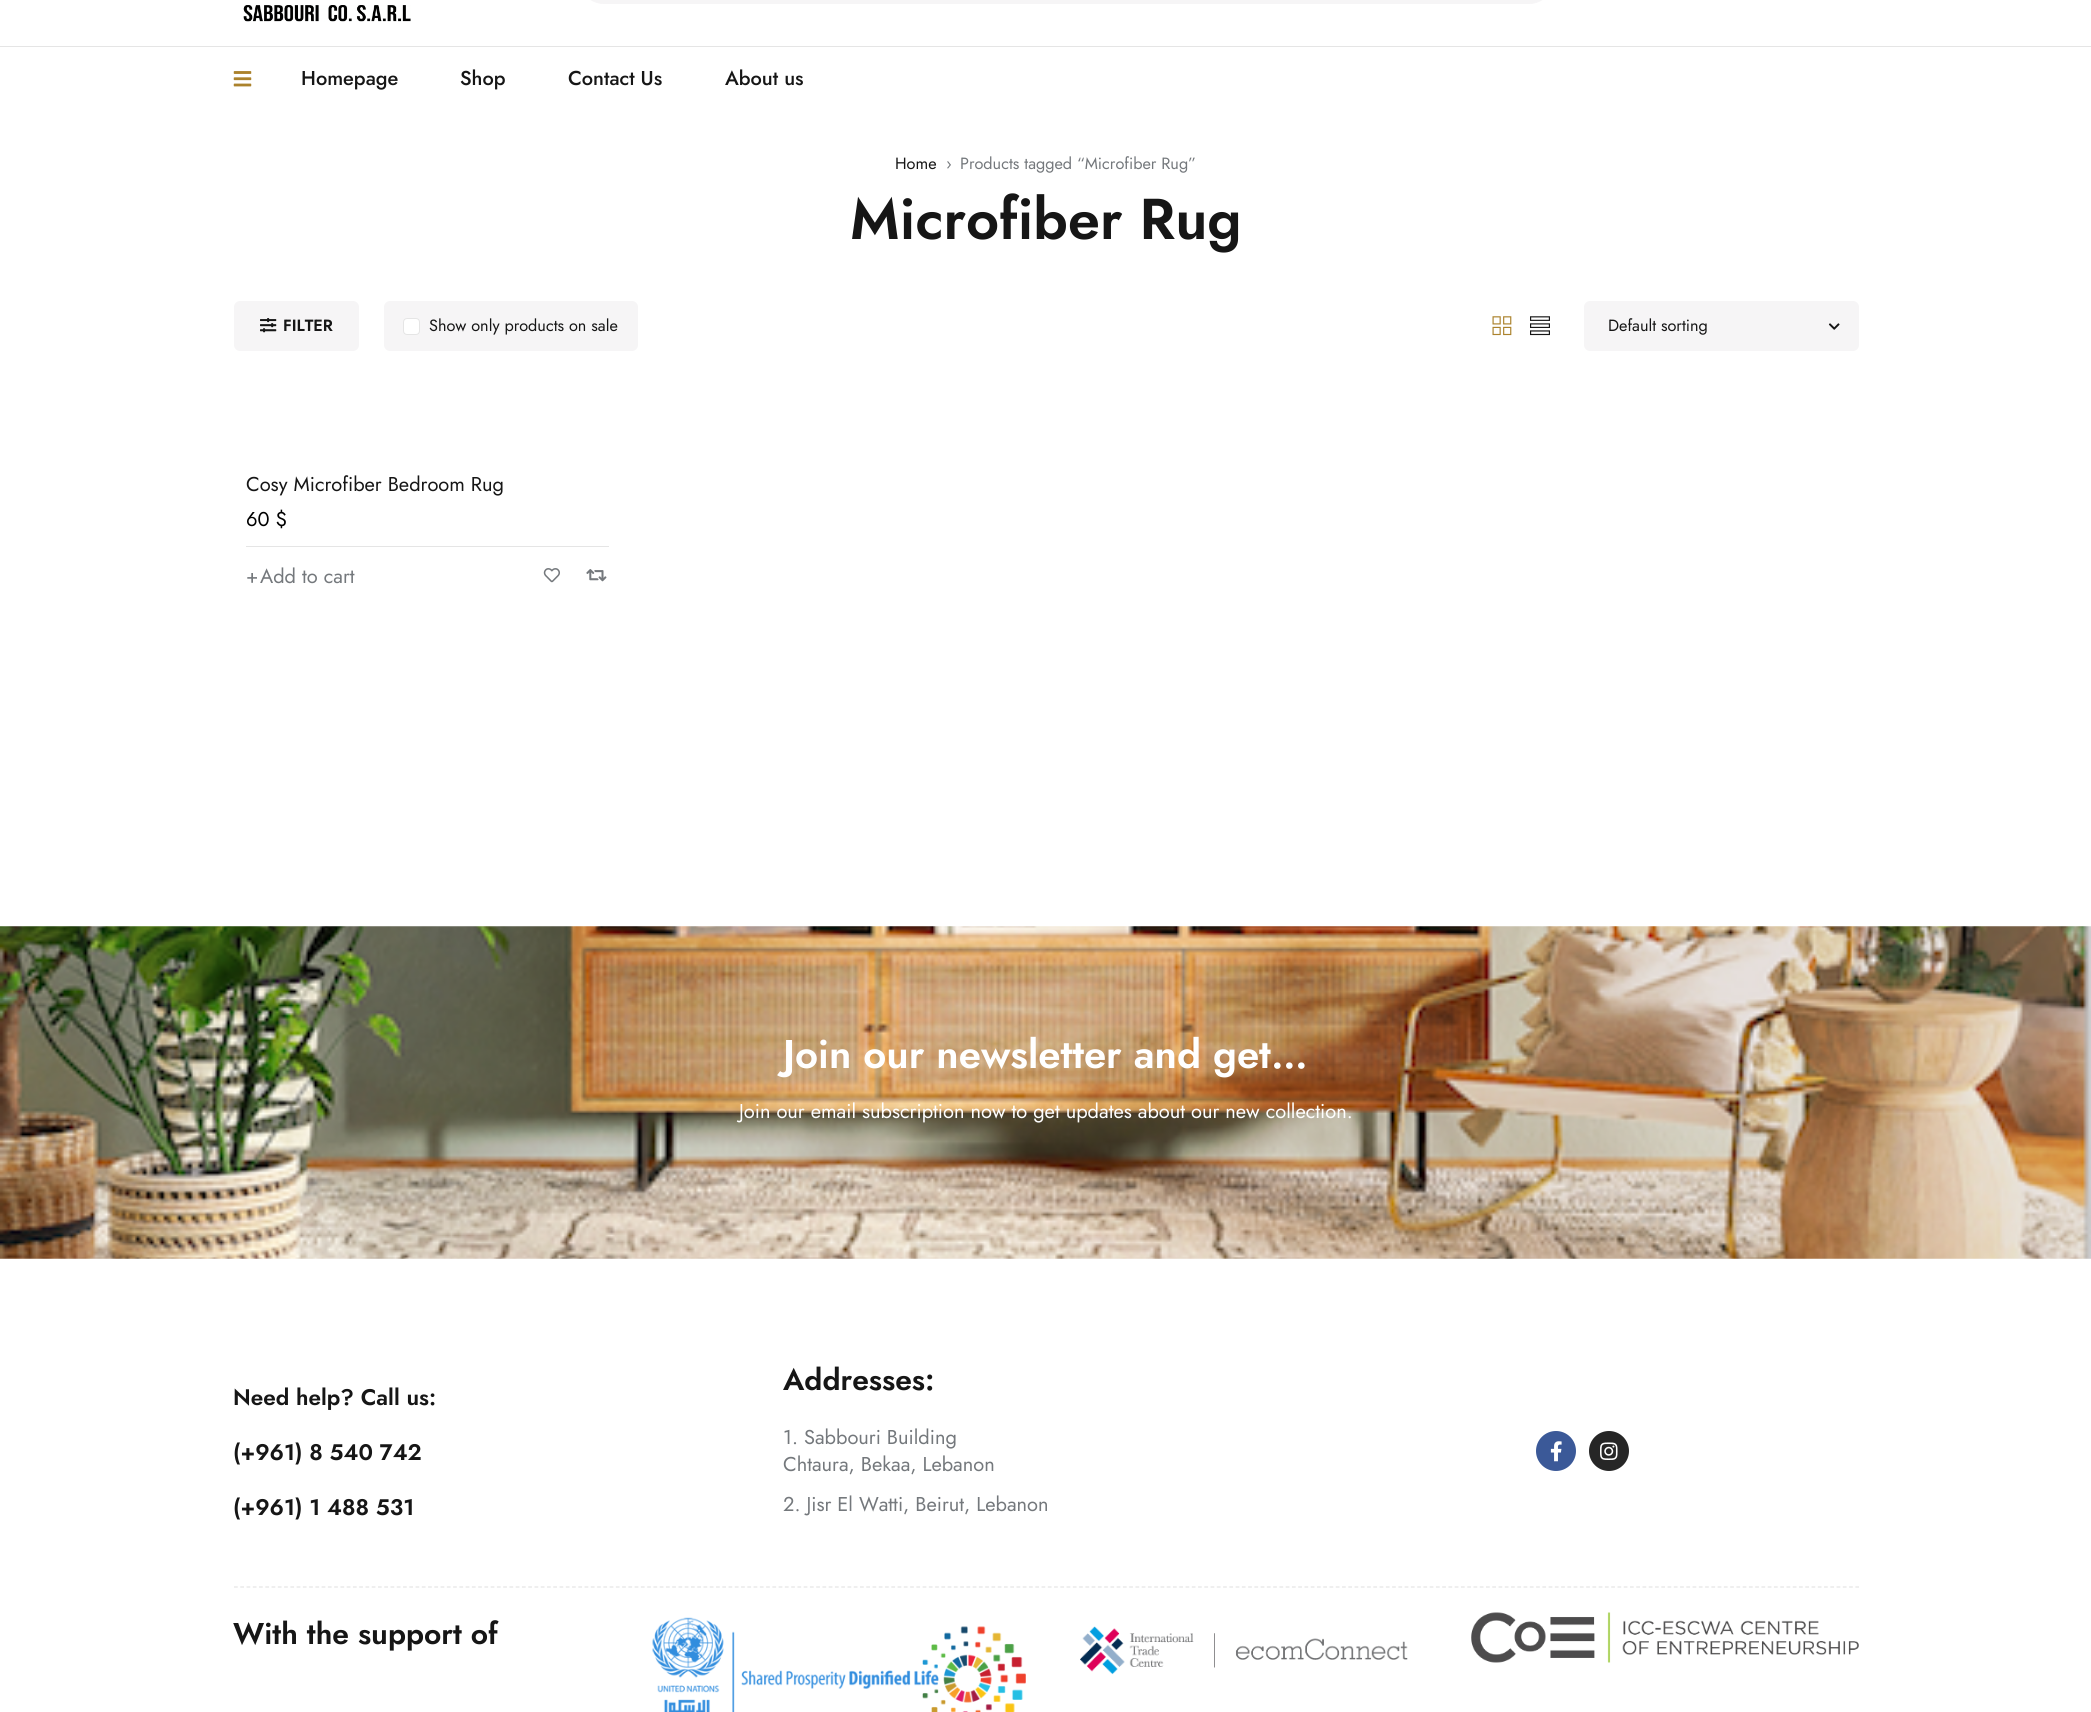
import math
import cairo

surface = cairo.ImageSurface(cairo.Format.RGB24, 2091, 1712)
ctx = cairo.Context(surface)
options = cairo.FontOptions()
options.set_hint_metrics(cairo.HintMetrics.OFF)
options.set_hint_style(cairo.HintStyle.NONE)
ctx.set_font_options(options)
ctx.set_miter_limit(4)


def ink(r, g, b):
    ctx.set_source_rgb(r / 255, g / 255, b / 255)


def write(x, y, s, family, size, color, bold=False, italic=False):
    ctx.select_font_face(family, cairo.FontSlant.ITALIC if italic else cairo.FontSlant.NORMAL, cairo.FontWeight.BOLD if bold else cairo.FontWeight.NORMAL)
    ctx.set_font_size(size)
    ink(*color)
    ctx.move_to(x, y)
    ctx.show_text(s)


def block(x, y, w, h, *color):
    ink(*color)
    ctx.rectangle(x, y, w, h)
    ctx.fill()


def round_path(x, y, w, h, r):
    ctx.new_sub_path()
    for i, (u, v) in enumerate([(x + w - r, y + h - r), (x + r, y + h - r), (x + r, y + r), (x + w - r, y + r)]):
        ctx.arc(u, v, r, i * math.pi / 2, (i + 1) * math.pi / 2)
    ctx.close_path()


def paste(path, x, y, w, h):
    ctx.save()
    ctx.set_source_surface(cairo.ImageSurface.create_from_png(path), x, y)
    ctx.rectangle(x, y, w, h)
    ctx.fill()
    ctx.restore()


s1 = dict(family="Jost Medium", size=20, color=(22, 22, 22))
s2 = dict(family="Jost", size=16.25, color=(22, 22, 22))
s3 = dict(family="Jost", size=16.25, color=(116, 120, 124))
s4 = dict(family="Jost SemiBold", size=57.5, color=(22, 22, 22))
s5 = dict(family="Jost SemiBold", size=16.25, color=(22, 22, 22))
s6 = dict(family="Jost", size=20, color=(22, 22, 22))
s7 = dict(family="Jost", size=20, color=(0, 0, 0))
s8 = dict(family="Jost", size=20, color=(116, 120, 124))
s9 = dict(family="Jost SemiBold", size=40, color=(255, 255, 255))
s10 = dict(family="Jost", size=20, color=(255, 255, 255))
s11 = dict(family="Jost SemiBold", size=22.5, color=(22, 22, 22))
s12 = dict(family="Jost SemiBold", size=30, color=(22, 22, 22))

ink(255, 255, 255)
ctx.paint()
ink(246, 245, 246)
round_path(579.5, -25.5, 974, 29, 24.5)
ctx.fill_preserve()
ctx.set_line_width(1)
ctx.stroke()
paste("pic1.png", 243, 5, 168, 17)
block(0, 46, 2091, 1, 229, 229, 229)
paste("pic2.png", 233, 71, 19, 16)
write(301, 85, "Homepage", **s1)
write(460, 85, "Shop", **s1)
write(568, 85, "Contact Us", **s1)
write(725, 85, "About us", **s1)
write(895, 169, "Home", **s2)
write(946, 169, "›", **s3)
write(960, 169, "Products tagged “Microfiber Rug”", **s3)
write(850, 239, "Microfiber Rug", **s4)
ink(246, 245, 246)
round_path(234, 301, 125, 50, 6)
ctx.fill()
paste("pic3.png", 260, 318, 17, 15)
write(283, 331, "FILTER", **s5)
ink(246, 245, 246)
round_path(384, 301, 254, 50, 6)
ctx.fill()
ink(255, 255, 255)
round_path(403.5, 318.5, 16, 16, 3.5)
ctx.fill_preserve()
ink(229, 229, 229)
ctx.stroke()
write(429, 331, "Show only products on sale", **s2)
paste("pic4.png", 1492, 316, 20, 20)
paste("pic5.png", 1530, 316, 20, 20)
ink(246, 245, 246)
round_path(1584, 301, 275, 50, 6)
ctx.fill()
write(1608, 331, "Default sorting", **s2)
paste("pic6.png", 1828, 323, 12, 7)
write(246, 491, "Cosy Microfiber Bedroom Rug", **s6)
write(246, 526, "60 $", **s7)
block(246, 546, 363, 1, 229, 229, 229)
write(246, 583, "+", **s8)
write(260, 583, "Add to cart", **s8)
paste("pic7.png", 543, 568, 17, 15)
paste("pic8.png", 586, 569, 21, 13)
paste("pic9.png", 0, 926, 2091, 333)
write(783, 1068, "Join our newsletter and get…", **s9)
write(739, 1118, "Join our email subscription now to get updates about our new collection.", **s10)
write(233, 1405, "Need help? Call us:", **s11)
write(233, 1460, "(+961) 8 540 742", **s11)
write(233, 1515, "(+961) 1 488 531", **s11)
write(783, 1390, "Addresses:", **s12)
write(783, 1444, "1. Sabbouri Building", **s8)
write(783, 1471, "Chtaura, Bekaa, Lebanon", **s8)
write(783, 1511, "2. Jisr El Watti, Beirut, Lebanon", **s8)
ink(59, 89, 152)
ctx.new_path()
ctx.arc(1556, 1451, 20, 0, 2 * math.pi)
ctx.fill()
paste("pic10.png", 1550, 1441, 12, 21)
ink(38, 38, 38)
ctx.arc(1609, 1451, 20, 0, 2 * math.pi)
ctx.fill()
paste("pic11.png", 1600, 1442, 18, 18)
ctx.new_path()
ctx.move_to(234, 1587)
ctx.line_to(1859, 1587)
ink(229, 229, 229)
ctx.set_line_width(1.2)
ctx.set_dash([3.75, 2.51])
ctx.stroke()
write(233, 1644, "With the support of", **s12)
paste("pic12.png", 652, 1617, 374, 95)
paste("pic13.png", 1080, 1626, 328, 49)
paste("pic14.png", 1471, 1612, 388, 51)
surface.write_to_png("screenshot.png")
